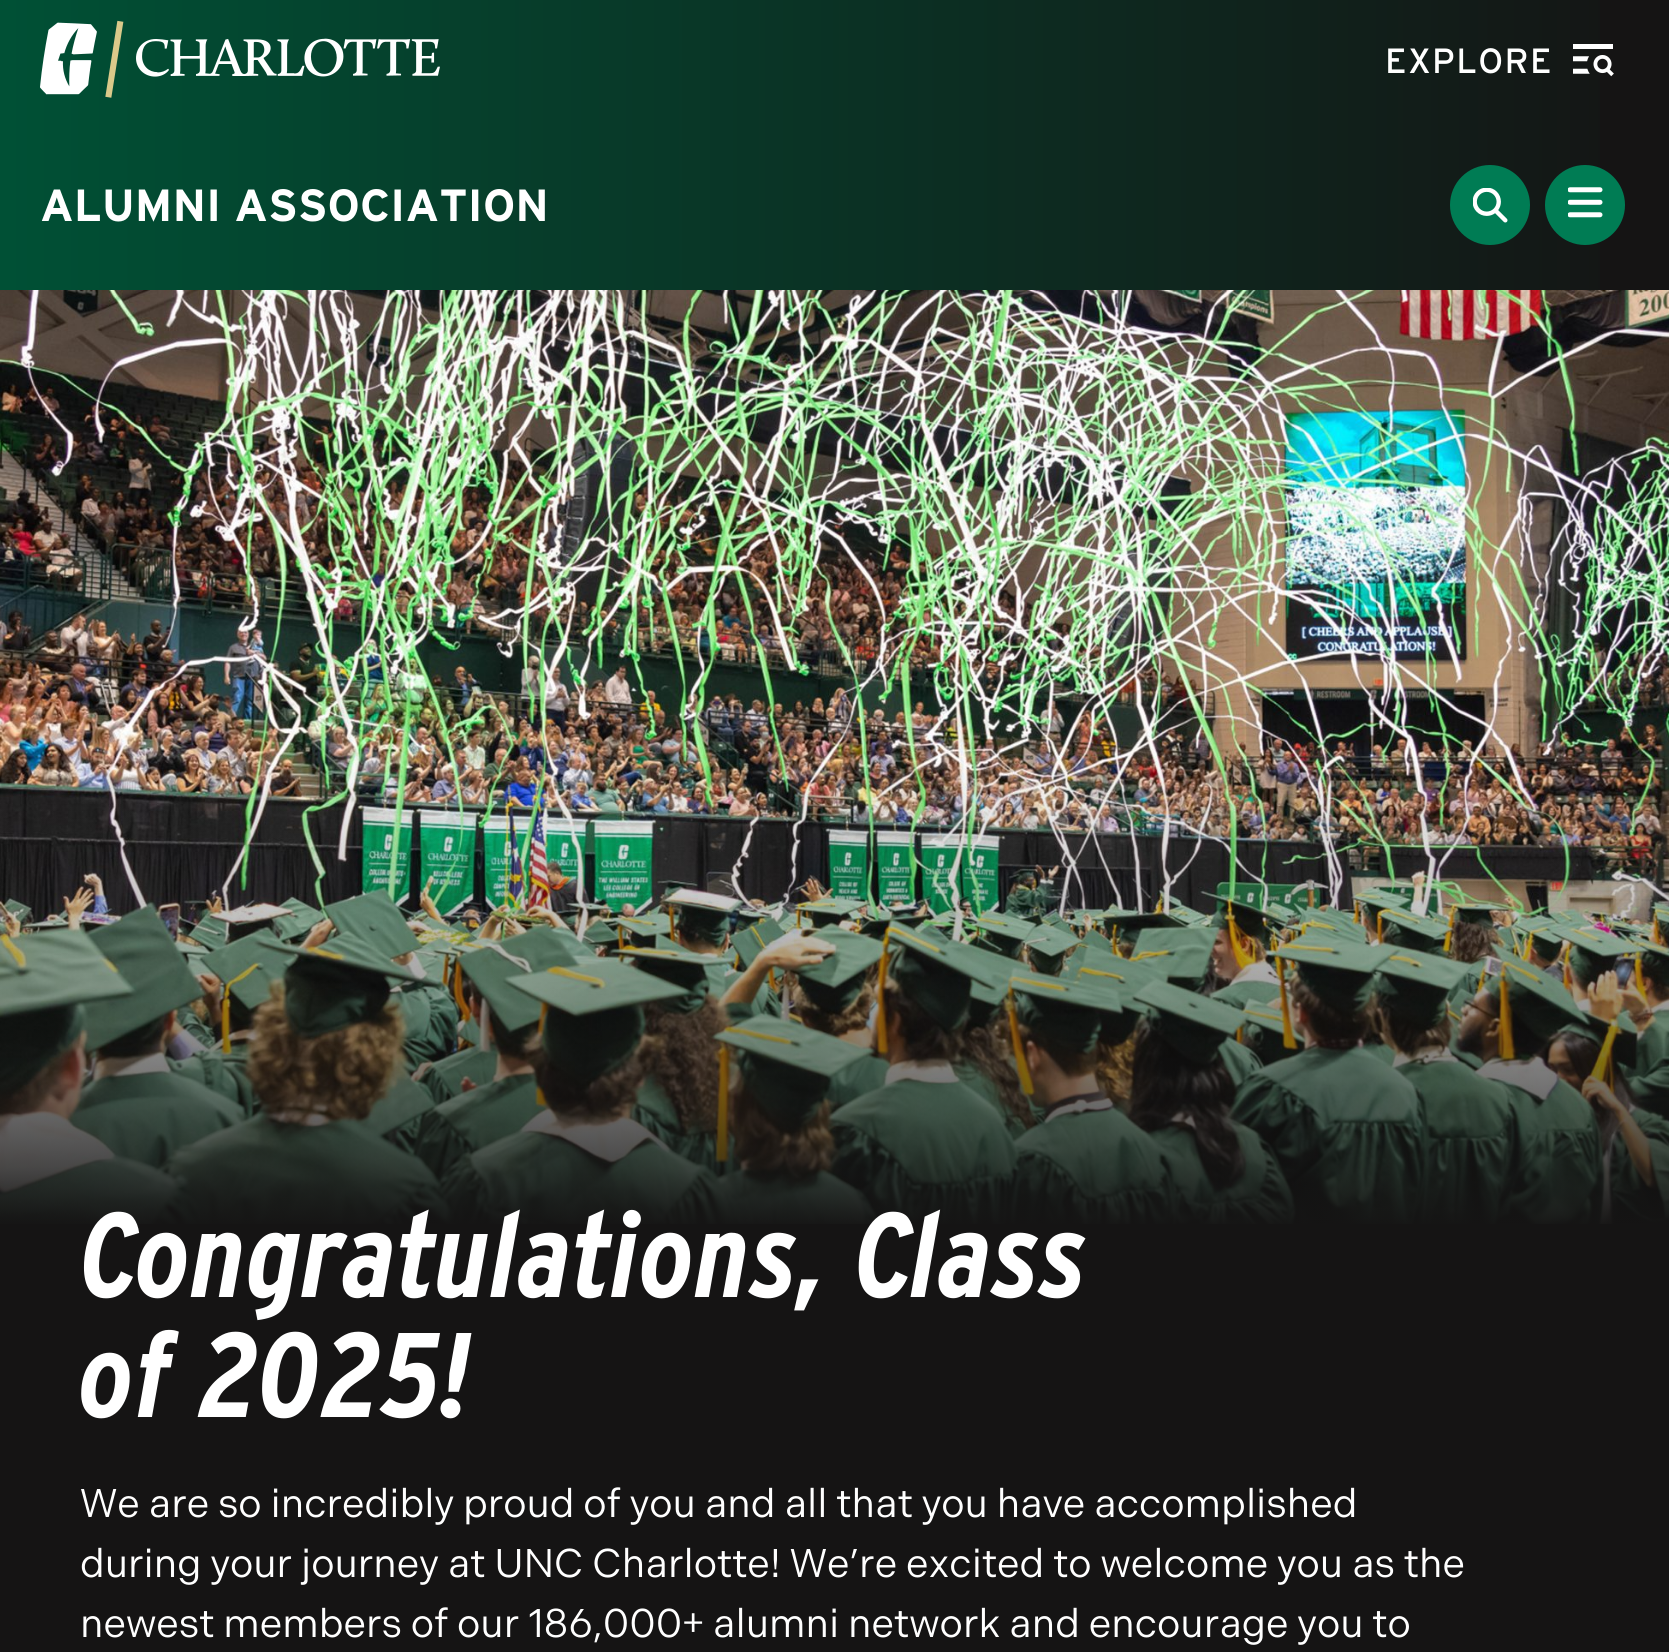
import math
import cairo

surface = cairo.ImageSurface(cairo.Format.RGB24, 1669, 1652)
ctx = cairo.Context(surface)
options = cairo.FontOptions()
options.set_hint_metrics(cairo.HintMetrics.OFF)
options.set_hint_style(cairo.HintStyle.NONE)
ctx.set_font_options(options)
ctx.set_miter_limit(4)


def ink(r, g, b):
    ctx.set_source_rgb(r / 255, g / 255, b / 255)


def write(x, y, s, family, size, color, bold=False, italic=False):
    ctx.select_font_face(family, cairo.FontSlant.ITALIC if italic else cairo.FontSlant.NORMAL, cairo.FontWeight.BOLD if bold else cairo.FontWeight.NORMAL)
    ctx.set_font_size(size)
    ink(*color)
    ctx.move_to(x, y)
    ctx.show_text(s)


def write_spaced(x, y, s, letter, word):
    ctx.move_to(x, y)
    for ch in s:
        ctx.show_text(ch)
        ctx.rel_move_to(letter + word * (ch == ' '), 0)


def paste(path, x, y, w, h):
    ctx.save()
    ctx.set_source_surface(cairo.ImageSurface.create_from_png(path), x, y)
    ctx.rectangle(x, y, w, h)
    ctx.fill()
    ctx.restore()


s1 = dict(family="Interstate", size=45, color=(255, 255, 255), bold=True)
s2 = dict(family="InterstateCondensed", size=120, color=(255, 255, 255), bold=True, italic=True)
s3 = dict(family="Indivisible", size=40, color=(255, 255, 255))

ink(21, 20, 20)
ctx.paint()
gradient = cairo.LinearGradient(0, 145, 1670, 145)
gradient.add_color_stop_rgba(0, 0, 0.314, 0.208, 1)
gradient.add_color_stop_rgba(1, 0.082, 0.078, 0.078, 1)
ctx.set_source(gradient)
ctx.rectangle(0, 0, 1600, 290)
ctx.fill()
paste("pic1.png", 40, 20, 400, 78)
ctx.select_font_face("Interstate")
ctx.set_font_size(35)
ink(255, 255, 255)
write_spaced(1385, 73, "EXPLORE", 1.25, 0)
paste("pic2.png", 1573, 44, 41, 33)
write(40, 221, "ALUMNI ASSOCIATION", **s1)
ink(0, 124, 84)
ctx.new_path()
ctx.arc(1490, 205, 40, 0, 2 * math.pi)
ctx.fill()
paste("pic3.png", 1473, 188, 35, 35)
ctx.arc(1585, 205, 40, 0, 2 * math.pi)
ctx.fill()
paste("pic4.png", 1568, 187, 35, 31)
paste("pic5.png", 0, 290, 1669, 934)
write(80, 1297, "Congratulations, Class", **s2)
write(80, 1417, "of 2025!", **s2)
write(80, 1517, "We are so incredibly proud of you and all that you have accomplished", **s3)
write(80, 1577, "during your journey at UNC Charlotte! We’re excited to welcome you as the", **s3)
write(80, 1637, "newest members of our 186,000+ alumni network and encourage you to", **s3)
surface.write_to_png("screenshot.png")
